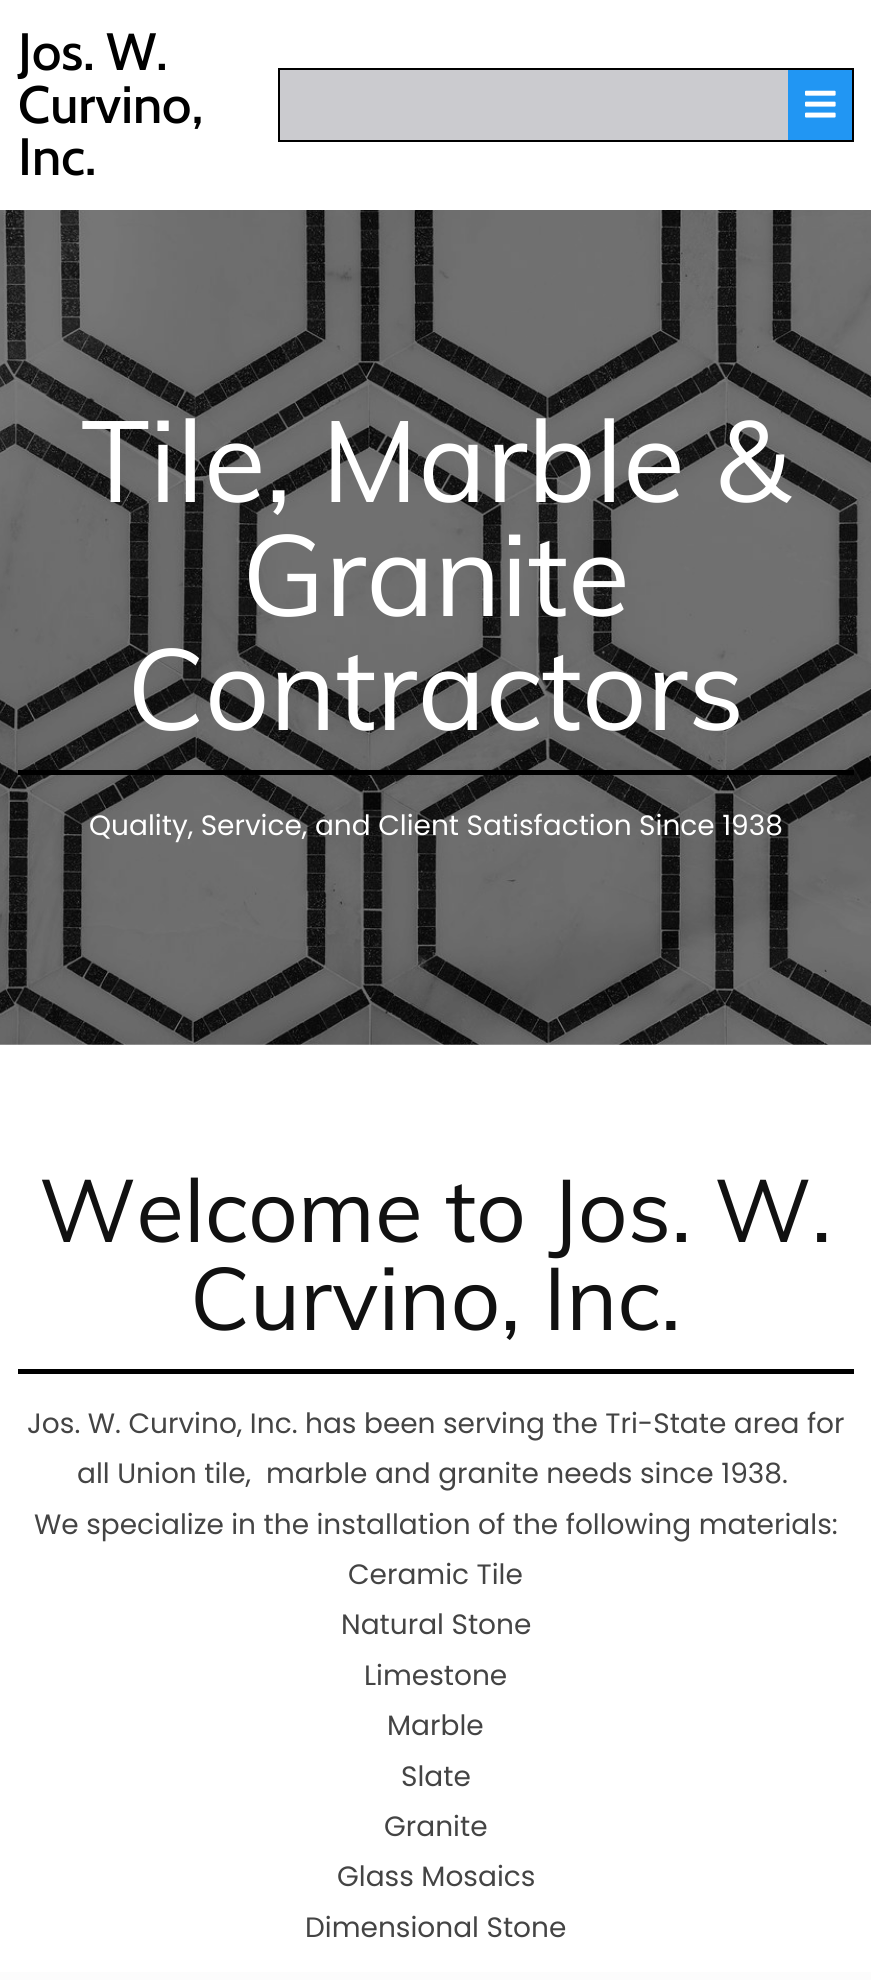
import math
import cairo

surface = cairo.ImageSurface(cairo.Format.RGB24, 871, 1980)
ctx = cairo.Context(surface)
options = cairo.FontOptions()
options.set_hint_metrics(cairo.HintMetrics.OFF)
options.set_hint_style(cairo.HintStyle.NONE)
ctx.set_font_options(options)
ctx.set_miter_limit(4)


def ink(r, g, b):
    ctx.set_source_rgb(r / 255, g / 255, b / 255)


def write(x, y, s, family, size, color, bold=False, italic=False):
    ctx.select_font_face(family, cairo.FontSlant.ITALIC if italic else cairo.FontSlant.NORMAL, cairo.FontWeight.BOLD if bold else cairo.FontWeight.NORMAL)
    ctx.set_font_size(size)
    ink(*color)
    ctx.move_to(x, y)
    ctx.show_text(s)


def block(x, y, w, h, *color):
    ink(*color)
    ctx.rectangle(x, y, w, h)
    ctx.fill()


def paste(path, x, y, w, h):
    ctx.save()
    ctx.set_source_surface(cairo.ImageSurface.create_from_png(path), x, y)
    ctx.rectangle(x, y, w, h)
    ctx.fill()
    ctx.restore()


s1 = dict(family="Cabin Medium", size=52.5, color=(0, 0, 0))
s2 = dict(family="Muli", size=113.75, color=(255, 255, 255))
s3 = dict(family="Poppins", size=28, color=(255, 255, 255))
s4 = dict(family="Muli", size=87.5, color=(17, 17, 17))
s5 = dict(family="Poppins", size=28, color=(68, 68, 68))

ink(255, 255, 255)
ctx.paint()
write(18, 70, "Jos. W.", **s1)
write(18, 123, "Curvino,", **s1)
write(18, 175, "Inc.", **s1)
block(280, 70, 508, 70, 203, 203, 207)
ctx.rectangle(279, 69, 574, 72)
ink(0, 0, 0)
ctx.stroke()
block(788, 70, 64, 70, 33, 150, 243)
paste("pic1.png", 805, 90, 31, 28)
paste("pic2.png", 0, 210, 871, 835)
write(81, 502, "Tile, Marble &", **s2)
write(242, 616, "Granite", **s2)
write(127, 730, "Contractors", **s2)
block(18, 770, 836, 5, 0, 0, 0)
write(89, 835, "Quality, Service, and Client Satisfaction Since 1938", **s3)
write(39, 1242, "Welcome to Jos. W.", **s4)
write(190, 1330, "Curvino, Inc.", **s4)
block(18, 1369, 836, 5, 0, 0, 0)
write(27, 1433, "Jos. W. Curvino, Inc. has been serving the Tri-State area for", **s5)
write(77, 1483, "all Union tile,  marble and granite needs since 1938.", **s5)
write(34, 1534, "We specialize in the installation of the following materials:", **s5)
write(348, 1584, "Ceramic Tile", **s5)
write(341, 1634, "Natural Stone", **s5)
write(364, 1685, "Limestone", **s5)
write(387, 1735, "Marble", **s5)
write(401, 1786, "Slate", **s5)
write(384, 1836, "Granite", **s5)
write(337, 1886, "Glass Mosaics", **s5)
write(305, 1937, "Dimensional Stone", **s5)
block(0, 1972, 871, 8, 252, 252, 252)
surface.write_to_png("screenshot.png")
